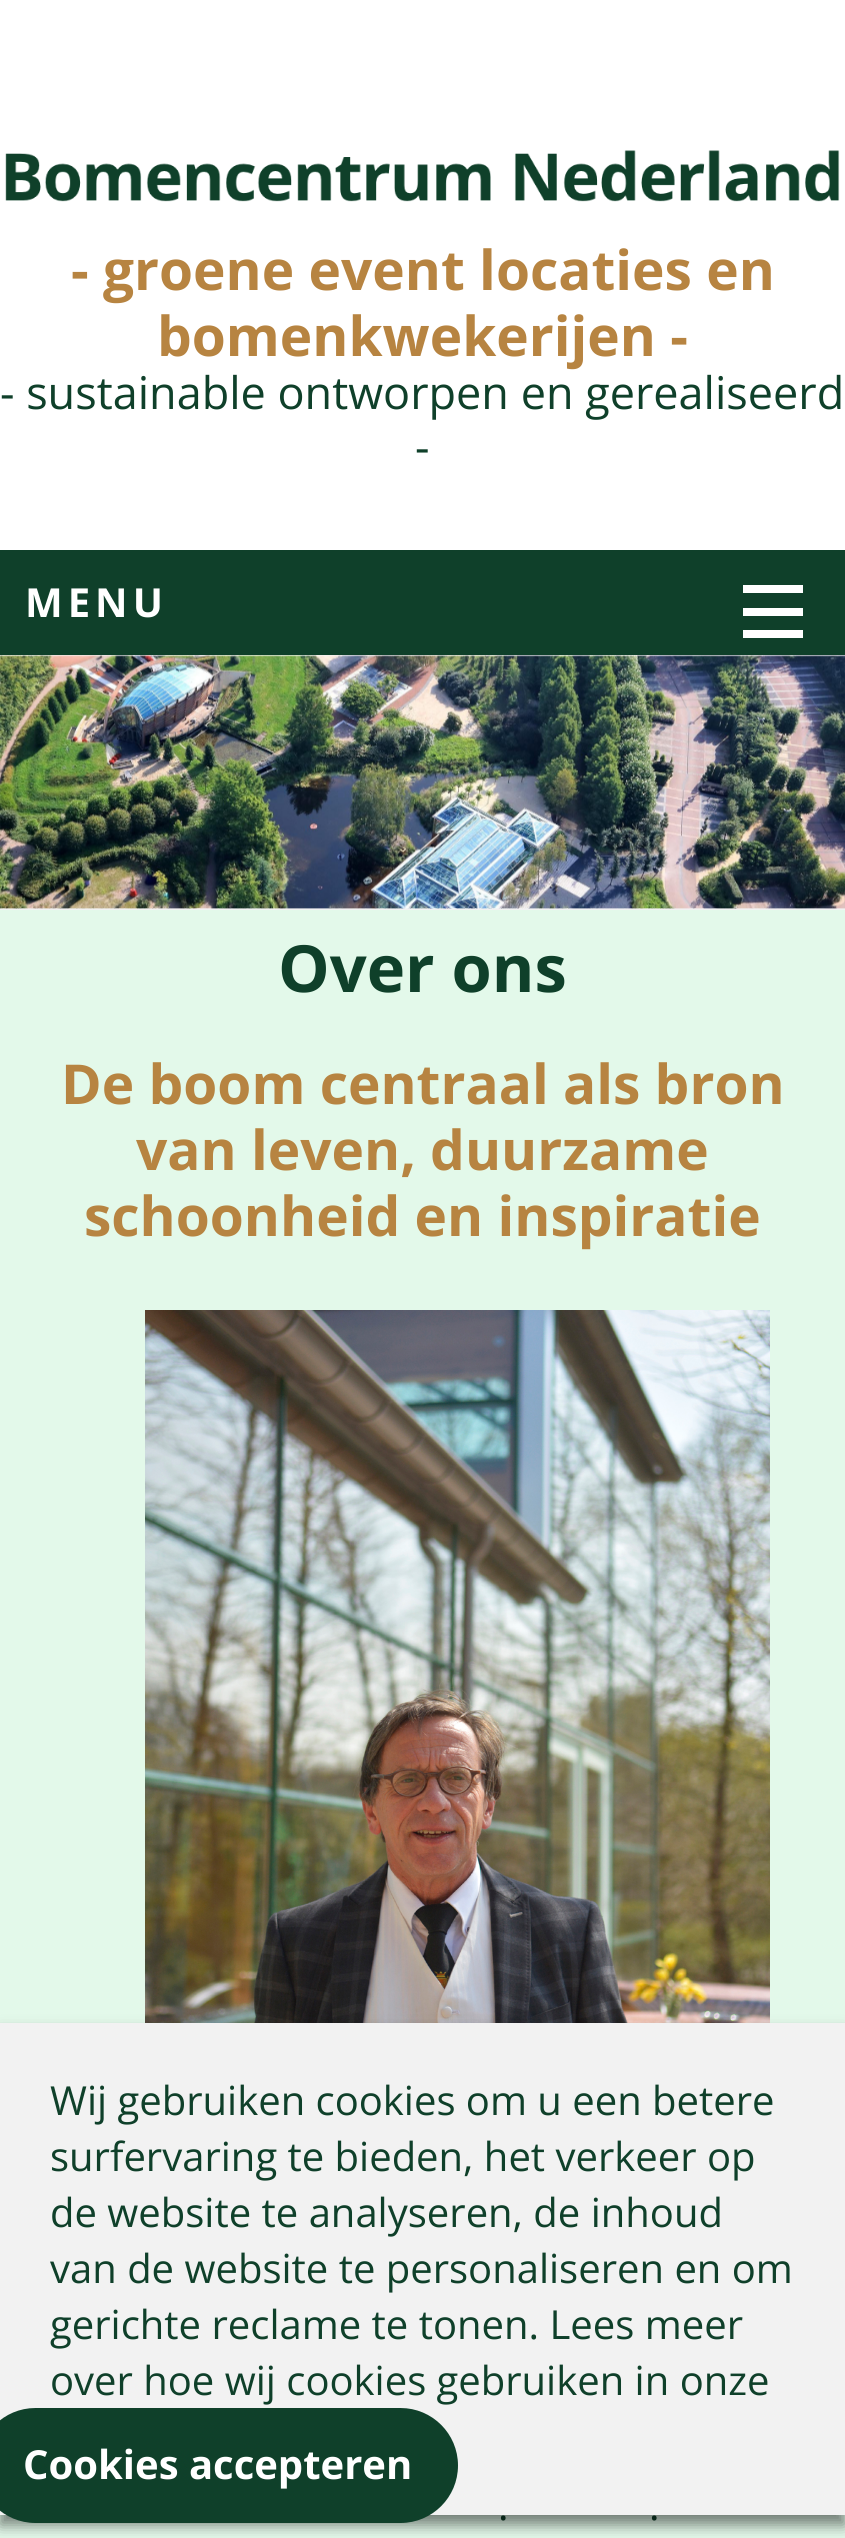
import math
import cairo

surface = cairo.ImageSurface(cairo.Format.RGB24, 845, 2538)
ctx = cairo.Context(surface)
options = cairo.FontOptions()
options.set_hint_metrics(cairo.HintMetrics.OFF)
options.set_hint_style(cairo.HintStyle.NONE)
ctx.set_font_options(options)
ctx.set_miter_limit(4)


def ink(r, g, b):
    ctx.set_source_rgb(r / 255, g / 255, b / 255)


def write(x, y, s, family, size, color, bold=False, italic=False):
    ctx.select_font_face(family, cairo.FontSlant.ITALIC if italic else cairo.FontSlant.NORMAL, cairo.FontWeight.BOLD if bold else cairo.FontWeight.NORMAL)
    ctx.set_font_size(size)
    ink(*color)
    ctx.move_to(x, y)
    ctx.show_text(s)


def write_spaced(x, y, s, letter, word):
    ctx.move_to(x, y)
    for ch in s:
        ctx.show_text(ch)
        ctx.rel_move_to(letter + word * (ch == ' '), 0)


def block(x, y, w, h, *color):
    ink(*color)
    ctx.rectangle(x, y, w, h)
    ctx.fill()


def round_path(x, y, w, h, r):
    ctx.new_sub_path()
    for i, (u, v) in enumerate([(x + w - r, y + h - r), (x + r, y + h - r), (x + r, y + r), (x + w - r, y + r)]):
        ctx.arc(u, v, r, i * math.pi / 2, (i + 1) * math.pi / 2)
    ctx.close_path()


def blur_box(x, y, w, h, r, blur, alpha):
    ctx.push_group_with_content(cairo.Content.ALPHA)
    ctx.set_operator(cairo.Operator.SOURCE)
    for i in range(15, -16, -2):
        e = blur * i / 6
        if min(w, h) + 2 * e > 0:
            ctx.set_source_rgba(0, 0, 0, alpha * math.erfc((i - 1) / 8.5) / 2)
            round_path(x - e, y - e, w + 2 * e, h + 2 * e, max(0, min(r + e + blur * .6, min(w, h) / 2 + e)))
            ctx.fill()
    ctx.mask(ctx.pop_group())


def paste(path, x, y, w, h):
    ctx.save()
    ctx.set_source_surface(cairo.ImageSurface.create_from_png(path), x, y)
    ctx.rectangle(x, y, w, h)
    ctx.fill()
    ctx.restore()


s1 = dict(family="Open Sans", size=55, color=(183, 132, 65), bold=True)
s2 = dict(family="Open Sans", size=45, color=(15, 64, 42))
s3 = dict(family="Open Sans", size=65, color=(15, 64, 42), bold=True)
s4 = dict(family="Open Sans", size=40, color=(15, 64, 42))
s5 = dict(family="Open Sans", size=40, color=(255, 255, 255), bold=True)

ink(227, 249, 234)
ctx.paint()
block(0, 0, 845, 550, 255, 255, 255)
paste("pic1.png", 5, 150, 835, 52)
write(71, 290, "- groene event locaties en", **s1)
write(157, 356, "bomenkwekerijen -", **s1)
write(0, 409, "- sustainable ontworpen en gerealiseerd", **s2)
write(415, 463, "-", **s2)
block(0, 550, 845, 105, 15, 64, 42)
ctx.select_font_face("Open Sans", cairo.FontSlant.NORMAL, cairo.FontWeight.BOLD)
ctx.set_font_size(40)
ink(255, 255, 255)
write_spaced(25, 617, "MENU", 5, 0)
block(743, 585, 60, 8, 255, 255, 255)
block(743, 608, 60, 8, 255, 255, 255)
block(743, 630, 60, 8, 255, 255, 255)
block(0, 655, 845, 255, 242, 242, 242)
paste("pic2.png", 0, 655, 845, 254)
write(278, 992, "Over ons", **s3)
write(61, 1104, "De boom centraal als bron", **s1)
write(136, 1170, "van leven, duurzame", **s1)
write(84, 1236, "schoonheid en inspiratie", **s1)
paste("pic3.png", 145, 1310, 625, 713)
write(498, 2520, ".", **s4)
write(649, 2520, ".", **s4)
ink(0, 0, 0)
blur_box(0, 2033, 845, 492, 0, 7.5, 0.5)
block(0, 2023, 845, 492, 242, 242, 242)
write(50, 2115, "Wij gebruiken cookies om u een betere", **s4)
write(50, 2171, "surfervaring te bieden, het verkeer op", **s4)
write(50, 2227, "de website te analyseren, de inhoud", **s4)
write(50, 2283, "van de website te personaliseren en om", **s4)
write(50, 2339, "gerichte reclame te tonen. Lees meer", **s4)
write(50, 2395, "over hoe wij cookies gebruiken in onze", **s4)
round_path(-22, 2408, 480, 115, 57.5)
ctx.fill()
write(23, 2479, "Cookies accepteren", **s5)
surface.write_to_png("screenshot.png")
